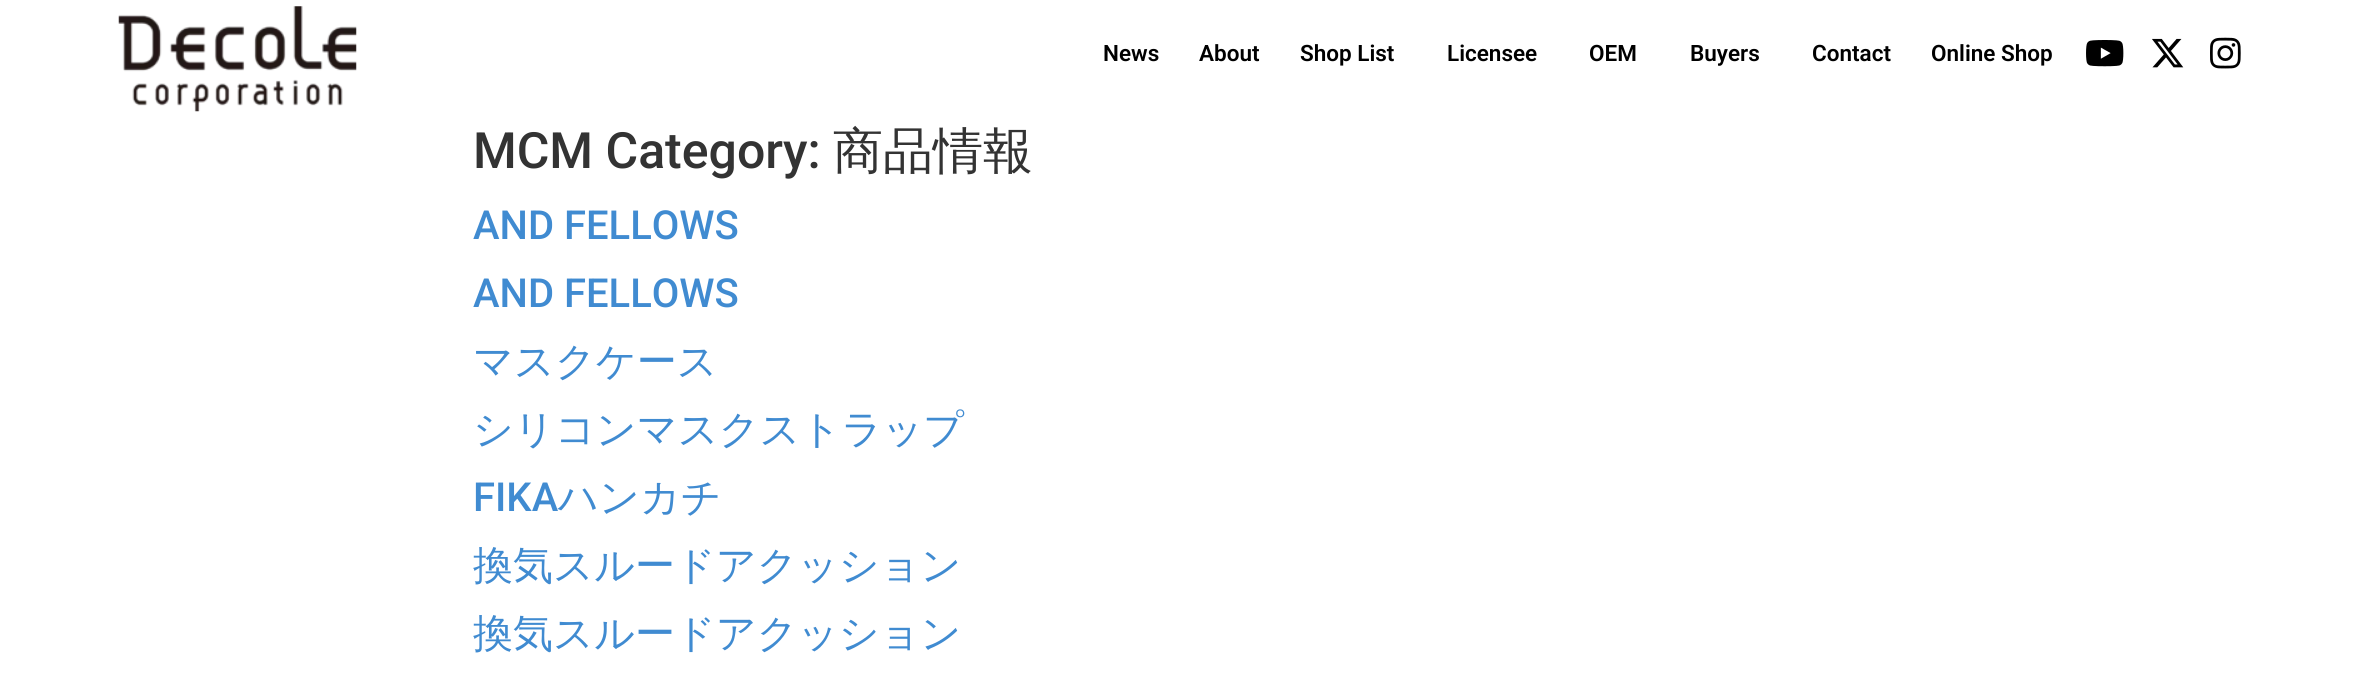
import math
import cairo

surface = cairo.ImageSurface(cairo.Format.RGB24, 2371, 680)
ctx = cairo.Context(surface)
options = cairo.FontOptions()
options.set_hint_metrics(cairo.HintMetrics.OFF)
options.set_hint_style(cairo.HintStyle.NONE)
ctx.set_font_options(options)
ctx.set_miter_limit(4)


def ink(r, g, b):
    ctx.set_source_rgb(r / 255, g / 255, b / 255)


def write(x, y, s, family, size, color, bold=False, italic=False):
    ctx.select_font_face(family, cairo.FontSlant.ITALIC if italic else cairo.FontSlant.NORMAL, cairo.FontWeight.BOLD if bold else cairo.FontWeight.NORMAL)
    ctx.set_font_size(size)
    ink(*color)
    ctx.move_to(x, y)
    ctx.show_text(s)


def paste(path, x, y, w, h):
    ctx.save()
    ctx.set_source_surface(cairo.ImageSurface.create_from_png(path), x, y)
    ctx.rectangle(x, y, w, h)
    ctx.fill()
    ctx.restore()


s1 = dict(family="Roboto SemiBold", size=22.5, color=(0, 0, 0))
s2 = dict(family="Roboto Medium", size=50, color=(51, 51, 51))
s3 = dict(family="WenQuanYi Zen Hei Medium", size=50, color=(51, 51, 51))
s4 = dict(family="Roboto Medium", size=40, color=(64, 139, 209))
s5 = dict(family="WenQuanYi Zen Hei Medium", size=40, color=(64, 139, 209))

ink(255, 255, 255)
ctx.paint()
paste("pic1.png", 118, 6, 239, 106)
write(1103, 61, "News", **s1)
write(1199, 61, "About", **s1)
write(1300, 61, "Shop List", **s1)
write(1447, 61, "Licensee", **s1)
write(1589, 61, "OEM", **s1)
write(1690, 61, "Buyers", **s1)
write(1812, 61, "Contact", **s1)
write(1931, 61, "Online Shop", **s1)
paste("pic2.png", 2086, 40, 38, 27)
paste("pic3.png", 2152, 38, 32, 30)
paste("pic4.png", 2210, 37, 31, 32)
write(473, 168, "MCM Category:", **s2)
write(833, 168, "商品情報", **s3)
write(473, 239, "AND FELLOWS", **s4)
write(473, 307, "AND FELLOWS", **s4)
write(473, 375, "マスクケース", **s5)
write(473, 443, "シリコンマスクストラップ", **s5)
write(473, 511, "FIKA", **s4)
write(558, 511, "ハンカチ", **s5)
write(473, 579, "換気スルードアクッション", **s5)
write(473, 647, "換気スルードアクッション", **s5)
surface.write_to_png("screenshot.png")
